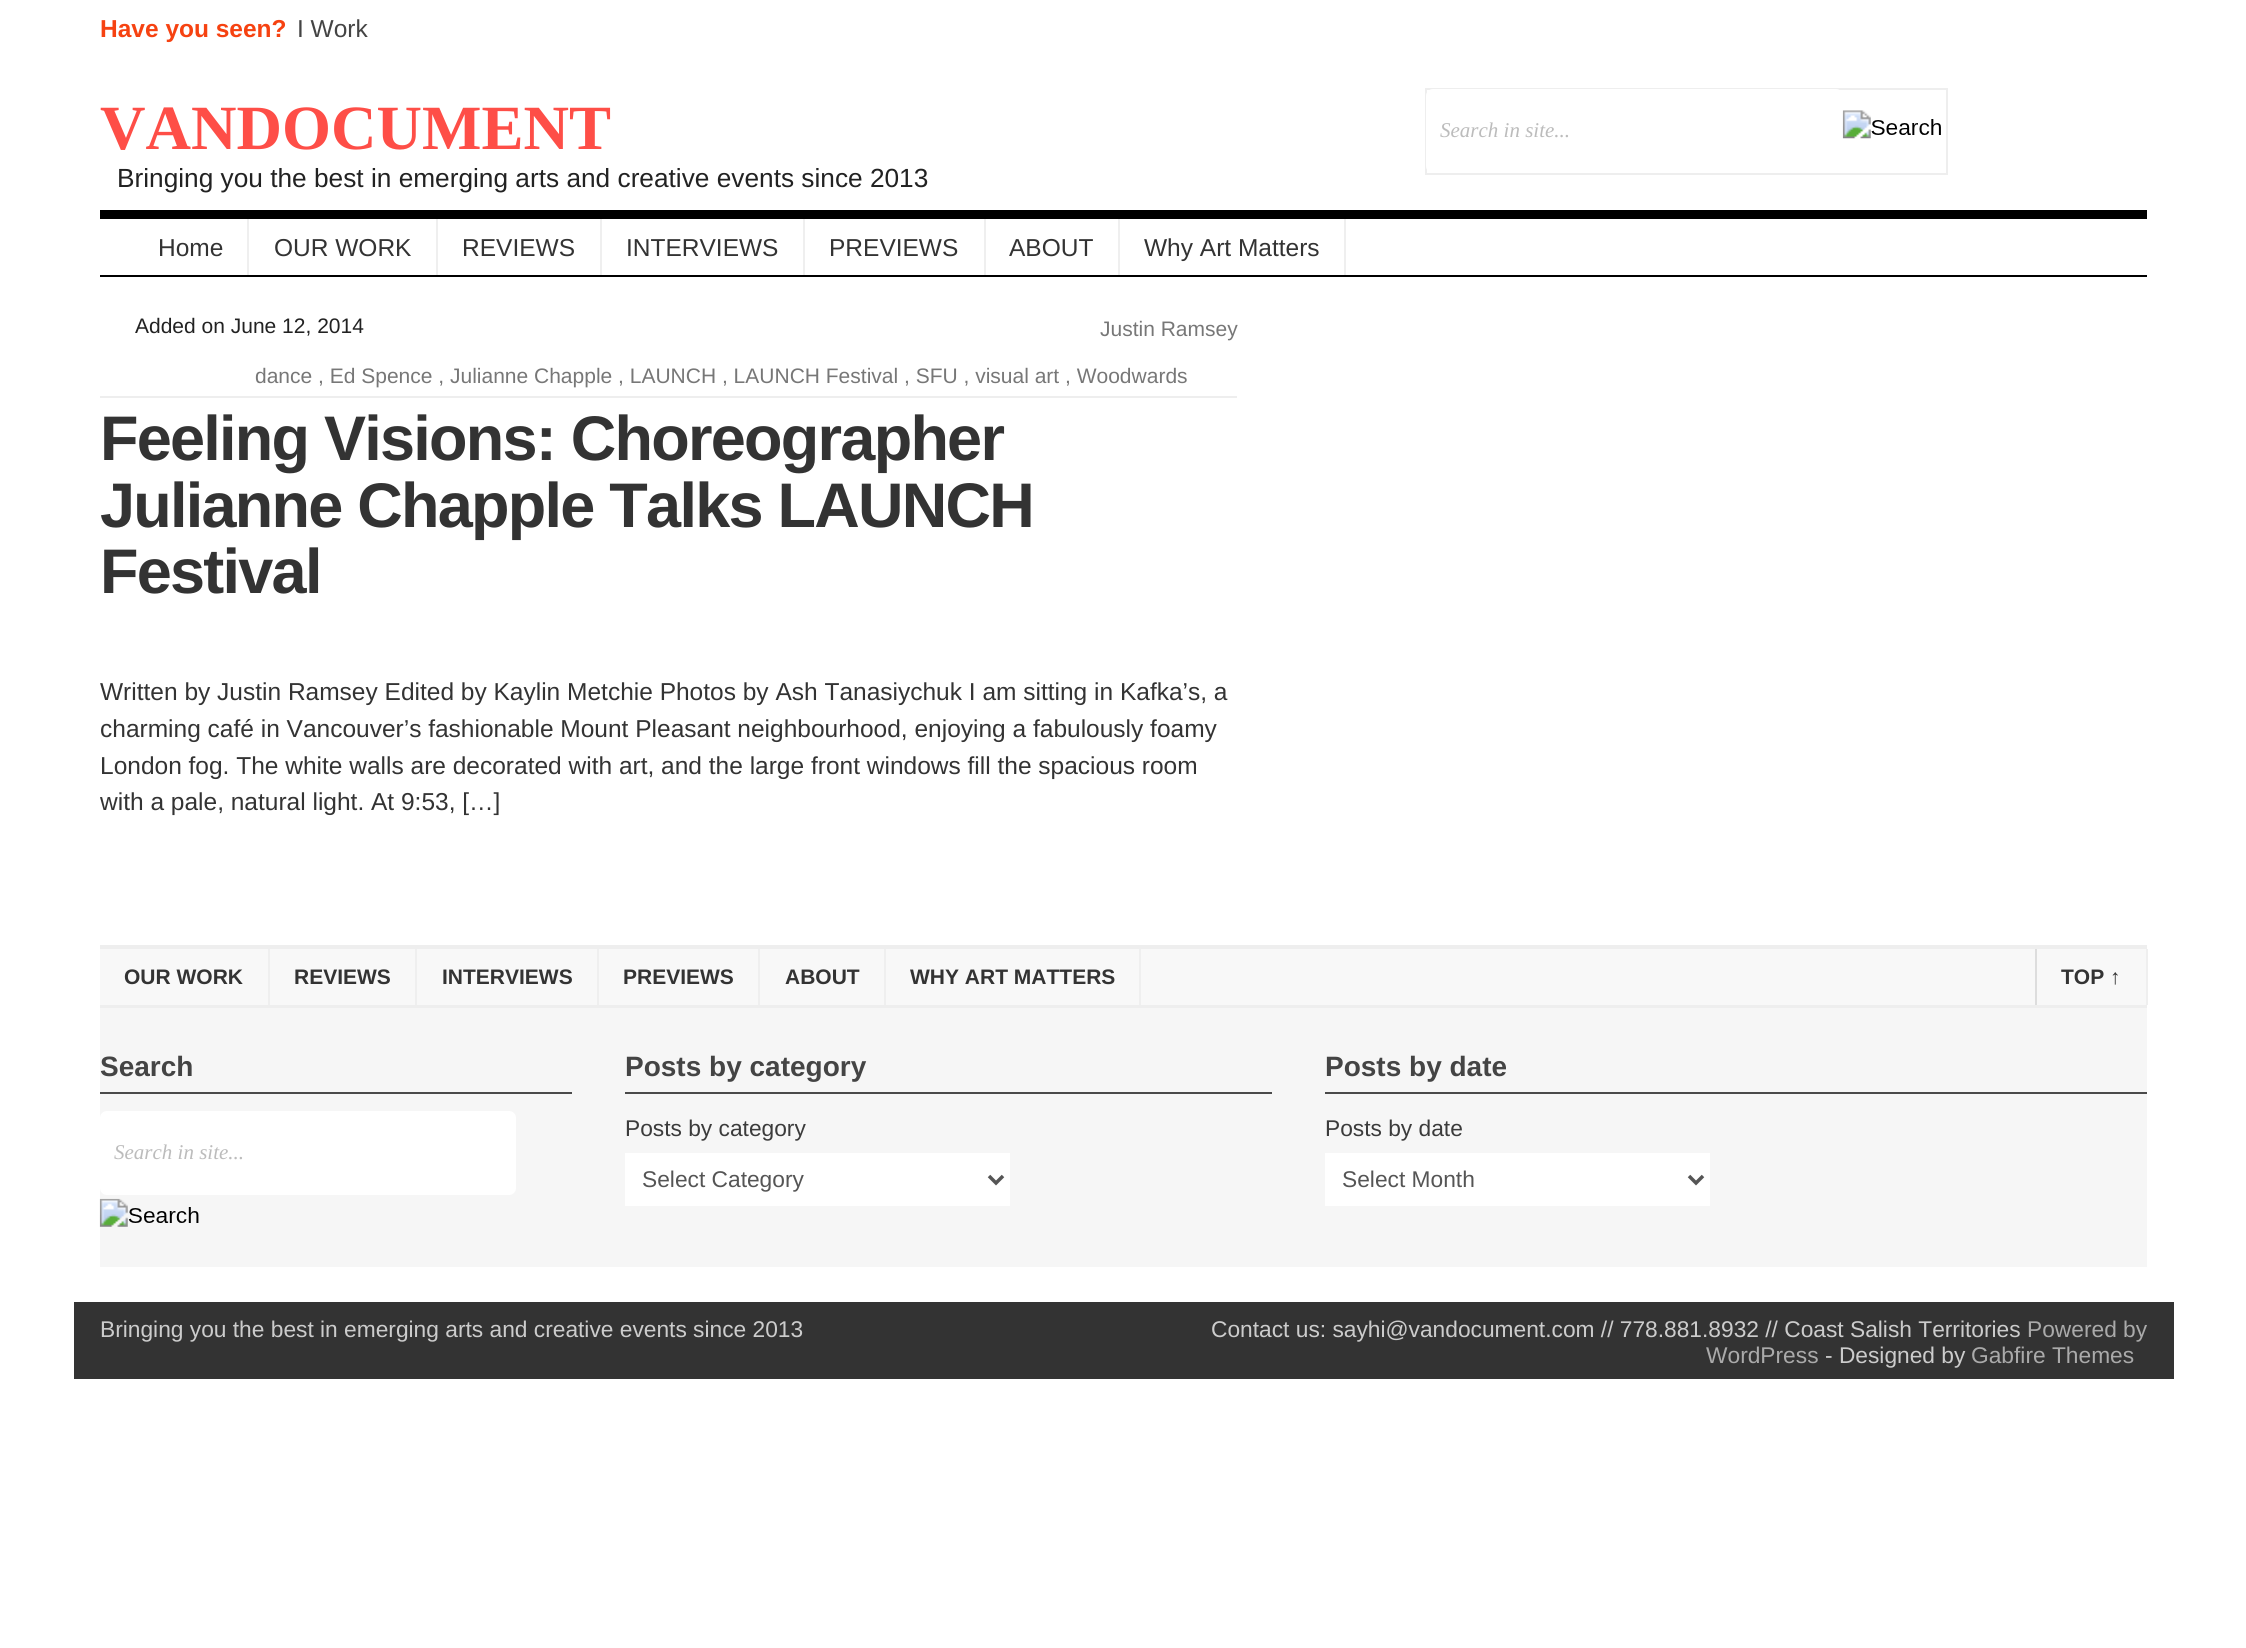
import math
import cairo

surface = cairo.ImageSurface(cairo.Format.RGB24, 2246, 1648)
ctx = cairo.Context(surface)
options = cairo.FontOptions()
options.set_hint_metrics(cairo.HintMetrics.OFF)
options.set_hint_style(cairo.HintStyle.NONE)
ctx.set_font_options(options)
ctx.set_miter_limit(4)


def ink(r, g, b):
    ctx.set_source_rgb(r / 255, g / 255, b / 255)


def write(x, y, s, family, size, color, bold=False, italic=False):
    ctx.select_font_face(family, cairo.FontSlant.ITALIC if italic else cairo.FontSlant.NORMAL, cairo.FontWeight.BOLD if bold else cairo.FontWeight.NORMAL)
    ctx.set_font_size(size)
    ink(*color)
    ctx.move_to(x, y)
    ctx.show_text(s)


def write_spaced(x, y, s, letter, word):
    ctx.move_to(x, y)
    for ch in s:
        ctx.show_text(ch)
        ctx.rel_move_to(letter + word * (ch == ' '), 0)


def block(x, y, w, h, *color):
    ink(*color)
    ctx.rectangle(x, y, w, h)
    ctx.fill()


def round_path(x, y, w, h, r):
    ctx.new_sub_path()
    for i, (u, v) in enumerate([(x + w - r, y + h - r), (x + r, y + h - r), (x + r, y + r), (x + w - r, y + r)]):
        ctx.arc(u, v, r, i * math.pi / 2, (i + 1) * math.pi / 2)
    ctx.close_path()


def paste(path, x, y, w, h):
    ctx.save()
    ctx.set_source_surface(cairo.ImageSurface.create_from_png(path), x, y)
    ctx.rectangle(x, y, w, h)
    ctx.fill()
    ctx.restore()


s1 = dict(family="Liberation Sans", size=24.5, color=(246, 66, 17), bold=True)
s2 = dict(family="Liberation Sans", size=24.5, color=(68, 68, 68))
s3 = dict(family="Liberation Serif", size=63, color=(254, 78, 71), bold=True)
s4 = dict(family="Liberation Sans", size=26.25, color=(34, 34, 34))
s5 = dict(family="Liberation Serif", size=21, color=(188, 188, 188), italic=True)
s6 = dict(family="Liberation Sans", size=24.5, color=(51, 51, 51))
s7 = dict(family="Liberation Sans", size=21, color=(34, 34, 34))
s8 = dict(family="Liberation Sans", size=21, color=(119, 119, 119))
s9 = dict(family="Liberation Sans", size=21, color=(51, 51, 51), bold=True)
s10 = dict(family="Liberation Sans", size=28, color=(68, 68, 68), bold=True)
s11 = dict(family="Liberation Sans", size=22.75, color=(59, 59, 59))
s12 = dict(family="Liberation Sans", size=22.75, color=(85, 85, 85))
s13 = dict(family="Liberation Sans", size=22.75, color=(204, 204, 204))
s14 = dict(family="Liberation Sans", size=22.75, color=(170, 170, 170))

ink(255, 255, 255)
ctx.paint()
write(100, 37, "Have you seen?", **s1)
write(297, 37, "I Work", **s2)
block(100, 210, 2047, 9, 0, 0, 0)
write(100, 149, "VANDOCUMENT", **s3)
write(117, 187, "Bringing you the best in emerging arts and creative events since 2013", **s4)
ctx.rectangle(1426, 89, 521, 85)
ink(238, 238, 238)
ctx.stroke()
ink(255, 255, 255)
round_path(1426, 89, 417, 84, 7)
ctx.fill()
write(1440, 137, "Search in site...", **s5)
paste("pic1.png", 1842, 110, 99, 29)
block(100, 275, 2047, 2, 0, 0, 0)
block(247, 219, 2, 56, 239, 239, 239)
write(158, 256, "Home", **s6)
block(436, 219, 2, 56, 239, 239, 239)
write(274, 256, "OUR WORK", **s6)
block(600, 219, 2, 56, 239, 239, 239)
write(462, 256, "REVIEWS", **s6)
block(803, 219, 2, 56, 239, 239, 239)
write(626, 256, "INTERVIEWS", **s6)
block(984, 219, 2, 56, 239, 239, 239)
write(829, 256, "PREVIEWS", **s6)
block(1118, 219, 2, 56, 239, 239, 239)
write(1009, 256, "ABOUT", **s6)
block(1344, 219, 2, 56, 239, 239, 239)
write(1144, 256, "Why Art Matters", **s6)
block(100, 396, 1137, 2, 238, 238, 238)
write(135, 333, "Added on June 12, 2014", **s7)
write(1100, 336, "Justin Ramsey", **s8)
write(255, 383, "dance , Ed Spence , Julianne Chapple , LAUNCH , LAUNCH Festival , SFU , visual art , Woodwards", **s8)
ctx.select_font_face("Liberation Sans", cairo.FontSlant.NORMAL, cairo.FontWeight.BOLD)
ctx.set_font_size(63)
ink(51, 51, 51)
write_spaced(100, 460, "Feeling Visions: Choreographer", -1.75, 0)
write_spaced(100, 527, "Julianne Chapple Talks LAUNCH", -1.75, 0)
write_spaced(100, 593, "Festival", -1.75, 0)
write(100, 700, "Written by Justin Ramsey Edited by Kaylin Metchie Photos by Ash Tanasiychuk I am sitting in Kafka’s, a", **s6)
write(100, 737, "charming café in Vancouver’s fashionable Mount Pleasant neighbourhood, enjoying a fabulously foamy", **s6)
write(100, 774, "London fog. The white walls are decorated with art, and the large front windows fill the spacious room", **s6)
write(100, 810, "with a pale, natural light. At 9:53, […]", **s6)
block(100, 949, 2046, 56, 248, 248, 248)
block(100, 945, 2047, 4, 238, 238, 238)
block(100, 1005, 2047, 3, 238, 238, 238)
block(268, 949, 2, 56, 239, 239, 239)
write(124, 984, "OUR WORK", **s9)
block(415, 949, 2, 56, 239, 239, 239)
write(294, 984, "REVIEWS", **s9)
block(597, 949, 2, 56, 239, 239, 239)
write(442, 984, "INTERVIEWS", **s9)
block(758, 949, 2, 56, 239, 239, 239)
write(623, 984, "PREVIEWS", **s9)
block(884, 949, 2, 56, 239, 239, 239)
write(785, 984, "ABOUT", **s9)
block(1139, 949, 2, 56, 239, 239, 239)
write(910, 984, "WHY ART MATTERS", **s9)
block(2035, 949, 2, 56, 221, 221, 221)
block(2146, 949, 2, 56, 239, 239, 239)
write(2061, 984, "TOP ↑", **s9)
block(100, 1008, 2047, 259, 246, 246, 246)
block(100, 1092, 472, 2, 74, 74, 74)
write(100, 1076, "Search", **s10)
ink(255, 255, 255)
round_path(100, 1111, 416, 84, 7)
ctx.fill()
write(114, 1159, "Search in site...", **s5)
paste("pic2.png", 99, 1198, 100, 29)
block(625, 1092, 647, 2, 74, 74, 74)
write(625, 1076, "Posts by category", **s10)
write(625, 1136, "Posts by category", **s11)
block(625, 1153, 385, 53, 255, 255, 255)
ctx.new_path()
ctx.move_to(989, 1176)
ctx.line_to(996, 1183)
ctx.line_to(1003, 1176)
ink(85, 85, 85)
ctx.set_line_width(3.5)
ctx.stroke()
write(642, 1187, "Select Category", **s12)
block(1325, 1092, 822, 2, 74, 74, 74)
write(1325, 1076, "Posts by date", **s10)
write(1325, 1136, "Posts by date", **s11)
block(1325, 1153, 385, 53, 255, 255, 255)
ctx.new_path()
ctx.move_to(1689, 1176)
ctx.line_to(1696, 1183)
ctx.line_to(1703, 1176)
ink(85, 85, 85)
ctx.stroke()
write(1342, 1187, "Select Month", **s12)
block(74, 1302, 2100, 77, 51, 51, 51)
write(100, 1337, "Bringing you the best in emerging arts and creative events since 2013", **s13)
write(1211, 1337, "Contact us: sayhi@vandocument.com // 778.881.8932 // Coast Salish Territories", **s13)
write(2027, 1337, "Powered by", **s14)
write(1706, 1363, "WordPress", **s14)
write(1825, 1363, "- Designed by", **s13)
write(1971, 1363, "Gabfire Themes", **s14)
surface.write_to_png("screenshot.png")
